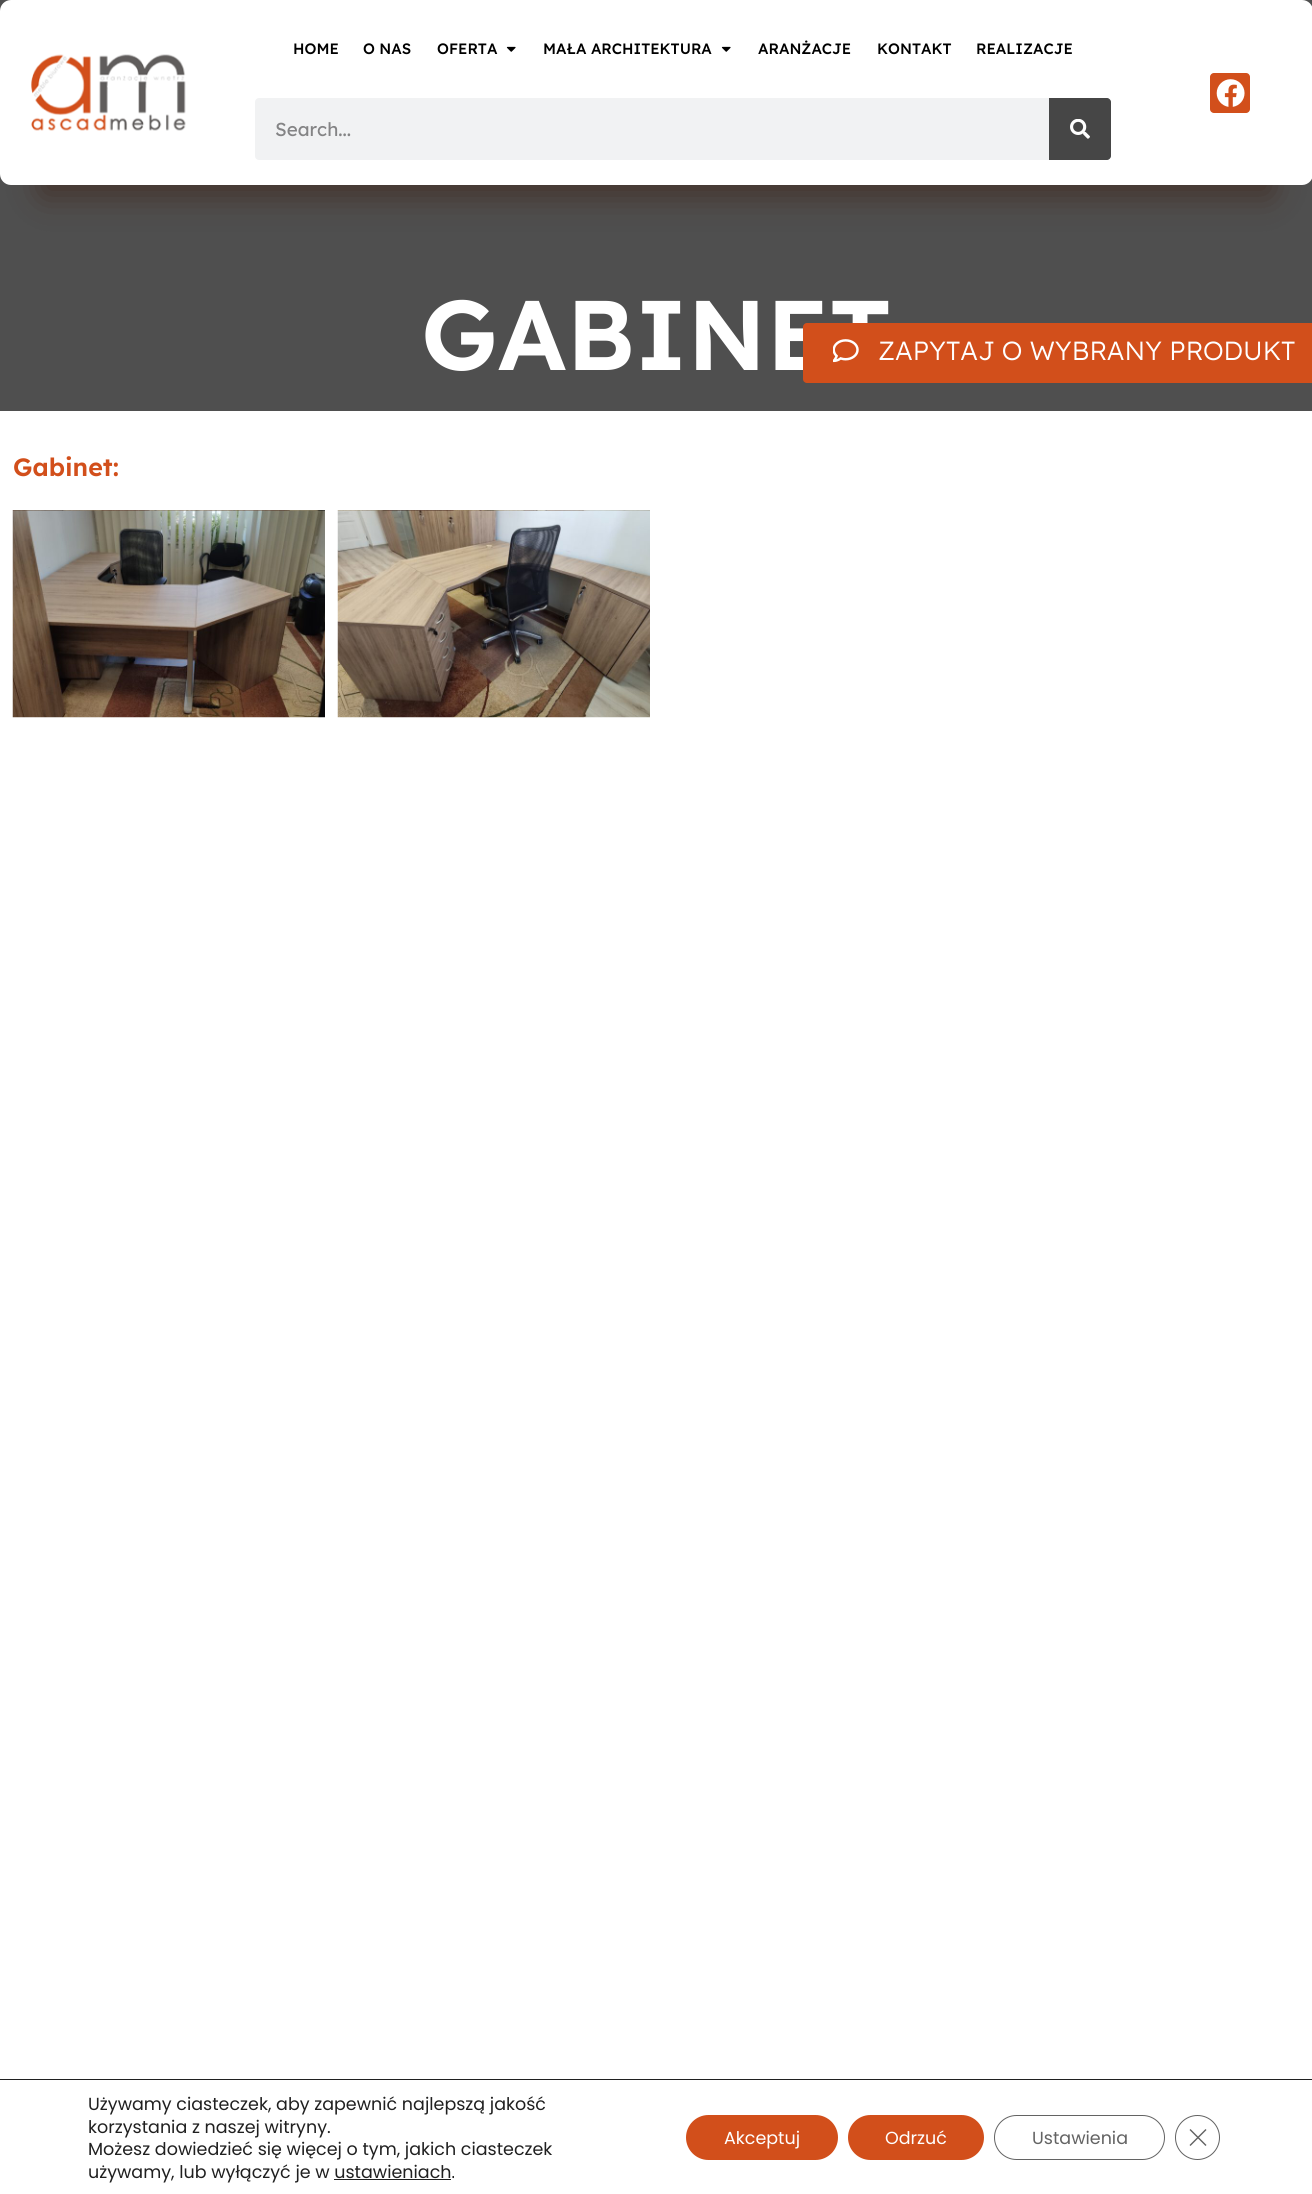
import math
import cairo

surface = cairo.ImageSurface(cairo.Format.RGB24, 1312, 2194)
ctx = cairo.Context(surface)
options = cairo.FontOptions()
options.set_hint_metrics(cairo.HintMetrics.OFF)
options.set_hint_style(cairo.HintStyle.NONE)
ctx.set_font_options(options)
ctx.set_miter_limit(4)


def ink(r, g, b):
    ctx.set_source_rgb(r / 255, g / 255, b / 255)


def write(x, y, s, family, size, color, bold=False, italic=False):
    ctx.select_font_face(family, cairo.FontSlant.ITALIC if italic else cairo.FontSlant.NORMAL, cairo.FontWeight.BOLD if bold else cairo.FontWeight.NORMAL)
    ctx.set_font_size(size)
    ink(*color)
    ctx.move_to(x, y)
    ctx.show_text(s)


def block(x, y, w, h, *color):
    ink(*color)
    ctx.rectangle(x, y, w, h)
    ctx.fill()


def round_path(x, y, w, h, r):
    ctx.new_sub_path()
    for i, (u, v) in enumerate([(x + w - r, y + h - r), (x + r, y + h - r), (x + r, y + r), (x + w - r, y + r)]):
        ctx.arc(u, v, r, i * math.pi / 2, (i + 1) * math.pi / 2)
    ctx.close_path()


def blur_box(x, y, w, h, r, blur, alpha):
    ctx.push_group_with_content(cairo.Content.ALPHA)
    ctx.set_operator(cairo.Operator.SOURCE)
    for i in range(15, -16, -2):
        e = blur * i / 6
        if min(w, h) + 2 * e > 0:
            ctx.set_source_rgba(0, 0, 0, alpha * math.erfc((i - 1) / 8.5) / 2)
            round_path(x - e, y - e, w + 2 * e, h + 2 * e, max(0, min(r + e + blur * .6, min(w, h) / 2 + e)))
            ctx.fill()
    ctx.mask(ctx.pop_group())


def paste(path, x, y, w, h):
    ctx.save()
    ctx.set_source_surface(cairo.ImageSurface.create_from_png(path), x, y)
    ctx.rectangle(x, y, w, h)
    ctx.fill()
    ctx.restore()


s1 = dict(family="Lexend Medium", size=15, color=(0, 0, 0))
s2 = dict(family="Lexend", size=18.75, color=(132, 132, 133))
s3 = dict(family="Lexend SemiBold", size=98.75, color=(255, 255, 255))
s4 = dict(family="Lexend SemiBold", size=25, color=(210, 79, 27))
s5 = dict(family="Lexend Light", size=26.25, color=(255, 255, 255))
s6 = dict(family="Poppins", size=17.5, color=(32, 32, 32))
s7 = dict(family="Poppins", size=17.5, color=(255, 255, 255))
s8 = dict(family="Poppins", size=17.5, color=(99, 99, 99))

ink(255, 255, 255)
ctx.paint()
block(0, 0, 1312, 411, 79, 79, 79)
ink(53, 16, 0)
blur_box(43, 94, 1227, 100, 0, 17.5, 0.5)
ink(255, 255, 255)
round_path(0, 0, 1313, 185, 11)
ctx.fill()
paste("pic1.png", 31, 54, 155, 77)
write(293, 54, "HOME", **s1)
write(363, 54, "O NAS", **s1)
write(437, 54, "OFERTA", **s1)
paste("pic2.png", 506, 46, 10, 6)
write(543, 54, "MAŁA ARCHITEKTURA", **s1)
paste("pic2.png", 721, 46, 10, 6)
write(758, 54, "ARANŻACJE", **s1)
write(877, 54, "KONTAKT", **s1)
write(976, 54, "REALIZACJE", **s1)
ink(241, 242, 243)
round_path(255, 98, 856, 62, 4)
ctx.fill()
write(275, 136, "Search...", **s2)
ink(70, 70, 70)
ctx.new_path()
ctx.move_to(1049, 98)
ctx.line_to(1107, 98)
ctx.curve_to(1109, 98, 1111, 100, 1111, 102)
ctx.line_to(1111, 156)
ctx.curve_to(1111, 158, 1109, 160, 1107, 160)
ctx.line_to(1049, 160)
ctx.close_path()
ctx.fill()
paste("pic3.png", 1070, 119, 20, 20)
ink(210, 79, 27)
round_path(1210, 73, 40, 40, 4)
ctx.fill()
paste("pic4.png", 1216, 79, 29, 28)
write(421, 370, "GABINET", **s3)
write(13, 476, "Gabinet:", **s4)
paste("pic5.png", 12, 510, 313, 208)
paste("pic6.png", 337, 510, 313, 208)
round_path(803, 323, 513, 60, 4)
ctx.fill()
paste("pic7.png", 833, 339, 26, 24)
write(878, 360, "ZAPYTAJ O WYBRANY PRODUKT", **s5)
block(0, 2079, 1312, 1, 32, 32, 32)
write(88, 2110, "Używamy ciasteczek, aby zapewnić najlepszą jakość", **s6)
write(88, 2133, "korzystania z naszej witryny.", **s6)
write(88, 2155, "Możesz dowiedzieć się więcej o tym, jakich ciasteczek", **s6)
write(88, 2178, "używamy, lub wyłączyć je w ustawieniach.", **s6)
block(334, 2179, 117, 1, 32, 32, 32)
ink(210, 79, 27)
round_path(686, 2115, 152, 45, 22.5)
ctx.fill()
write(724, 2144, "Akceptuj", **s7)
ink(210, 79, 27)
round_path(848, 2115, 136, 45, 22.5)
ctx.fill()
write(885, 2144, "Odrzuć", **s7)
round_path(994.5, 2115.5, 170, 44, 22)
ink(99, 99, 99)
ctx.set_line_width(1)
ctx.stroke()
write(1032, 2144, "Ustawienia", **s8)
ctx.new_path()
ctx.arc(1197.5, 2137.5, 22, 0, 2 * math.pi)
ink(98, 98, 98)
ctx.stroke()
ctx.new_path()
ctx.move_to(1205.5, 2129)
ctx.line_to(1206.5, 2130)
ctx.line_to(1190.5, 2146)
ctx.line_to(1189.5, 2145)
ctx.close_path()
ctx.fill()
ctx.new_path()
ctx.move_to(1189.5, 2130)
ctx.line_to(1190.5, 2129)
ctx.line_to(1206.5, 2145)
ctx.line_to(1205.5, 2146)
ctx.close_path()
ctx.fill()
surface.write_to_png("screenshot.png")
